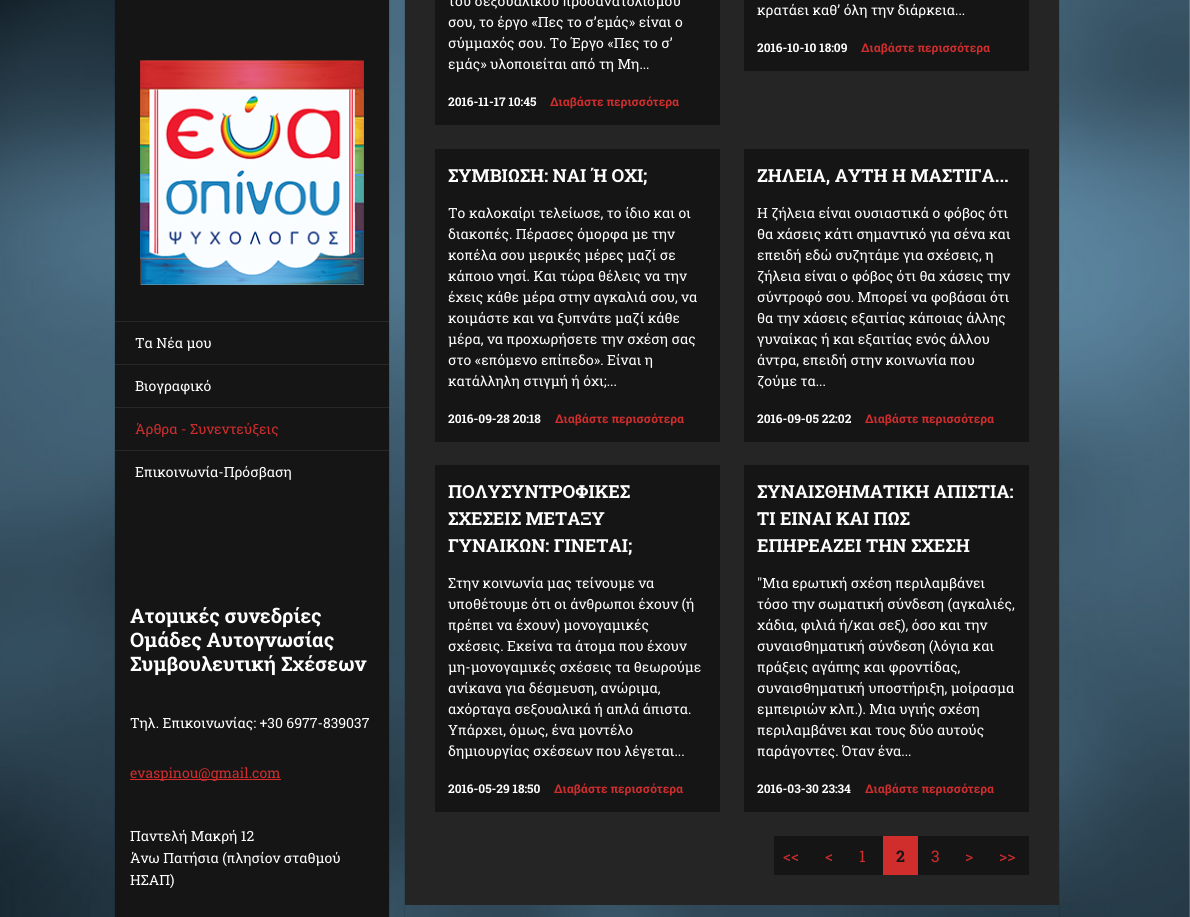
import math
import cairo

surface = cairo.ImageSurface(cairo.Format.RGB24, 1190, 917)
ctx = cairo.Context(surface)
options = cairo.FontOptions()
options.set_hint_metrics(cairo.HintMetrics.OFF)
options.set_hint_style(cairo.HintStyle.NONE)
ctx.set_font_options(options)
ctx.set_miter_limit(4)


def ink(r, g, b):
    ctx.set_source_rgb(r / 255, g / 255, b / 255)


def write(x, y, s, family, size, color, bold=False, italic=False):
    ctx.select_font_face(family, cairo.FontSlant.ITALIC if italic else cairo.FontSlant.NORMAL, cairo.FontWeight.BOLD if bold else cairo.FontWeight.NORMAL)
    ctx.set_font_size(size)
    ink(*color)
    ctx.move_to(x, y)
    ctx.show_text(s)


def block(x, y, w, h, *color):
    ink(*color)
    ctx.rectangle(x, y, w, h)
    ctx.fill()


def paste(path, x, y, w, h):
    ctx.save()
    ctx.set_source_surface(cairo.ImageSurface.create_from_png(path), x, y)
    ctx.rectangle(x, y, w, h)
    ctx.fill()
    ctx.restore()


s1 = dict(family="Roboto Slab", size=14, color=(255, 255, 255))
s2 = dict(family="Roboto Slab", size=14, color=(208, 45, 45))
s3 = dict(family="Roboto Slab", size=20, color=(255, 255, 255), bold=True)
s4 = dict(family="Roboto Slab", size=12, color=(255, 255, 255), bold=True)
s5 = dict(family="Roboto Slab", size=12, color=(208, 45, 45), bold=True)
s6 = dict(family="Roboto Slab", size=18, color=(255, 255, 255), bold=True)
s7 = dict(family="Roboto Slab", size=16, color=(208, 45, 45))
s8 = dict(family="Roboto Slab", size=16, color=(21, 21, 21), bold=True)

ink(255, 255, 255)
ctx.paint()
paste("pic1.png", 0, 0, 1190, 917)
block(115, 0, 274, 917, 21, 21, 21)
ctx.rectangle(114.5, -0.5, 275, 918)
ctx.set_source_rgba(0, 0, 0, 0.1)
ctx.set_line_width(1)
ctx.stroke()
paste("pic2.png", 140, 60, 224, 225)
block(115, 321, 274, 1, 39, 39, 39)
write(135, 348, "Τα Νέα μου", **s1)
block(115, 364, 274, 1, 39, 39, 39)
write(135, 391, "Βιογραφικό", **s1)
block(115, 407, 274, 1, 39, 39, 39)
write(135, 434, "Άρθρα - Συνεντεύξεις", **s2)
block(115, 450, 274, 1, 39, 39, 39)
write(135, 477, "Επικοινωνία-Πρόσβαση", **s1)
write(130, 623, "Ατομικές συνεδρίες", **s3)
write(130, 647, "Ομάδες Αυτογνωσίας", **s3)
write(130, 671, "Συμβουλευτική Σχέσεων", **s3)
write(130, 728, "Τηλ. Επικοινωνίας: +30 6977-839037", **s1)
block(130, 779, 151, 1, 208, 45, 45)
write(130, 778, "evaspinou@gmail.com", **s2)
write(130, 841, "Παντελή Μακρή 12", **s1)
write(130, 863, "Άνω Πατήσια (πλησίον σταθμού", **s1)
write(130, 885, "ΗΣΑΠ)", **s1)
ctx.rectangle(404.5, -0.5, 655, 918)
ctx.set_source_rgba(0, 0, 0, 0.1)
ctx.stroke()
block(405, 0, 654, 905, 37, 37, 37)
block(435, 0, 285, 125, 21, 21, 21)
write(448, 6, "του σεξουαλικού προσανατολισμού", **s1)
write(448, 27, "σου, το έργο «Πες το σ’εμάς» είναι ο", **s1)
write(448, 48, "σύμμαχός σου. Το Έργο «Πες το σ’", **s1)
write(448, 69, "εμάς» υλοποιείται από τη Μη...", **s1)
write(448, 106, "2016-11-17 10:45", **s4)
write(550, 106, "Διαβάστε περισσότερα", **s5)
block(744, 0, 285, 71, 21, 21, 21)
write(757, 15, "κρατάει καθ’ όλη την διάρκεια...", **s1)
write(757, 52, "2016-10-10 18:09", **s4)
write(861, 52, "Διαβάστε περισσότερα", **s5)
block(435, 149, 285, 293, 21, 21, 21)
write(448, 182, "ΣΥΜΒΙΩΣΗ: ΝΑΙ Ή ΟΧΙ;", **s6)
write(448, 218, "Το καλοκαίρι τελείωσε, το ίδιο και οι", **s1)
write(448, 239, "διακοπές. Πέρασες όμορφα με την", **s1)
write(448, 260, "κοπέλα σου μερικές μέρες μαζί σε", **s1)
write(448, 281, "κάποιο νησί. Και τώρα θέλεις να την", **s1)
write(448, 302, "έχεις κάθε μέρα στην αγκαλιά σου, να", **s1)
write(448, 323, "κοιμάστε και να ξυπνάτε μαζί κάθε", **s1)
write(448, 344, "μέρα, να προχωρήσετε την σχέση σας", **s1)
write(448, 365, "στο «επόμενο επίπεδο». Είναι η", **s1)
write(448, 386, "κατάλληλη στιγμή ή όχι;...", **s1)
write(448, 423, "2016-09-28 20:18", **s4)
write(555, 423, "Διαβάστε περισσότερα", **s5)
block(744, 149, 285, 293, 21, 21, 21)
write(757, 182, "ΖΗΛΕΙΑ, ΑΥΤΗ Η ΜΑΣΤΙΓΑ...", **s6)
write(757, 218, "Η ζήλεια είναι ουσιαστικά ο φόβος ότι", **s1)
write(757, 239, "θα χάσεις κάτι σημαντικό για σένα και", **s1)
write(757, 260, "επειδή εδώ συζητάμε για σχέσεις, η", **s1)
write(757, 281, "ζήλεια είναι ο φόβος ότι θα χάσεις την", **s1)
write(757, 302, "σύντροφό σου. Μπορεί να φοβάσαι ότι", **s1)
write(757, 323, "θα την χάσεις εξαιτίας κάποιας άλλης", **s1)
write(757, 344, "γυναίκας ή και εξαιτίας ενός άλλου", **s1)
write(757, 365, "άντρα, επειδή στην κοινωνία που", **s1)
write(757, 386, "ζούμε τα...", **s1)
write(757, 423, "2016-09-05 22:02", **s4)
write(865, 423, "Διαβάστε περισσότερα", **s5)
block(435, 465, 285, 347, 21, 21, 21)
write(448, 498, "ΠΟΛΥΣΥΝΤΡΟΦΙΚΕΣ", **s6)
write(448, 525, "ΣΧΕΣΕΙΣ ΜΕΤΑΞΥ", **s6)
write(448, 552, "ΓΥΝΑΙΚΩΝ: ΓΙΝΕΤΑΙ;", **s6)
write(448, 588, "Στην κοινωνία μας τείνουμε να", **s1)
write(448, 609, "υποθέτουμε ότι οι άνθρωποι έχουν (ή", **s1)
write(448, 630, "πρέπει να έχουν) μονογαμικές", **s1)
write(448, 651, "σχέσεις. Εκείνα τα άτομα που έχουν", **s1)
write(448, 672, "μη-μονογαμικές σχέσεις τα θεωρούμε", **s1)
write(448, 693, "ανίκανα για δέσμευση, ανώριμα,", **s1)
write(448, 714, "αχόρταγα σεξουαλικά ή απλά άπιστα.", **s1)
write(448, 735, "Υπάρχει, όμως, ένα μοντέλο", **s1)
write(448, 756, "δημιουργίας σχέσεων που λέγεται...", **s1)
write(448, 793, "2016-05-29 18:50", **s4)
write(554, 793, "Διαβάστε περισσότερα", **s5)
block(744, 465, 285, 347, 21, 21, 21)
write(757, 498, "ΣΥΝΑΙΣΘΗΜΑΤΙΚΗ ΑΠΙΣΤΙΑ:", **s6)
write(757, 525, "ΤΙ ΕΙΝΑΙ ΚΑΙ ΠΩΣ", **s6)
write(757, 552, "ΕΠΗΡΕΑΖΕΙ ΤΗΝ ΣΧΕΣΗ", **s6)
write(757, 588, "\"Μια ερωτική σχέση περιλαμβάνει", **s1)
write(757, 609, "τόσο την σωματική σύνδεση (αγκαλιές,", **s1)
write(757, 630, "χάδια, φιλιά ή/και σεξ), όσο και την", **s1)
write(757, 651, "συναισθηματική σύνδεση (λόγια και", **s1)
write(757, 672, "πράξεις αγάπης και φροντίδας,", **s1)
write(757, 693, "συναισθηματική υποστήριξη, μοίρασμα", **s1)
write(757, 714, "εμπειριών κλπ.). Μια υγιής σχέση", **s1)
write(757, 735, "περιλαμβάνει και τους δύο αυτούς", **s1)
write(757, 756, "παράγοντες. Όταν ένα...", **s1)
write(757, 793, "2016-03-30 23:34", **s4)
write(865, 793, "Διαβάστε περισσότερα", **s5)
block(774, 836, 255, 39, 21, 21, 21)
write(783, 862, "<<", **s7)
write(825, 862, "<", **s7)
write(859, 862, "1", **s7)
block(883, 836, 35, 39, 208, 45, 45)
write(896, 862, "2", **s8)
write(931, 862, "3", **s7)
write(965, 862, ">", **s7)
write(999, 862, ">>", **s7)
surface.write_to_png("screenshot.png")
